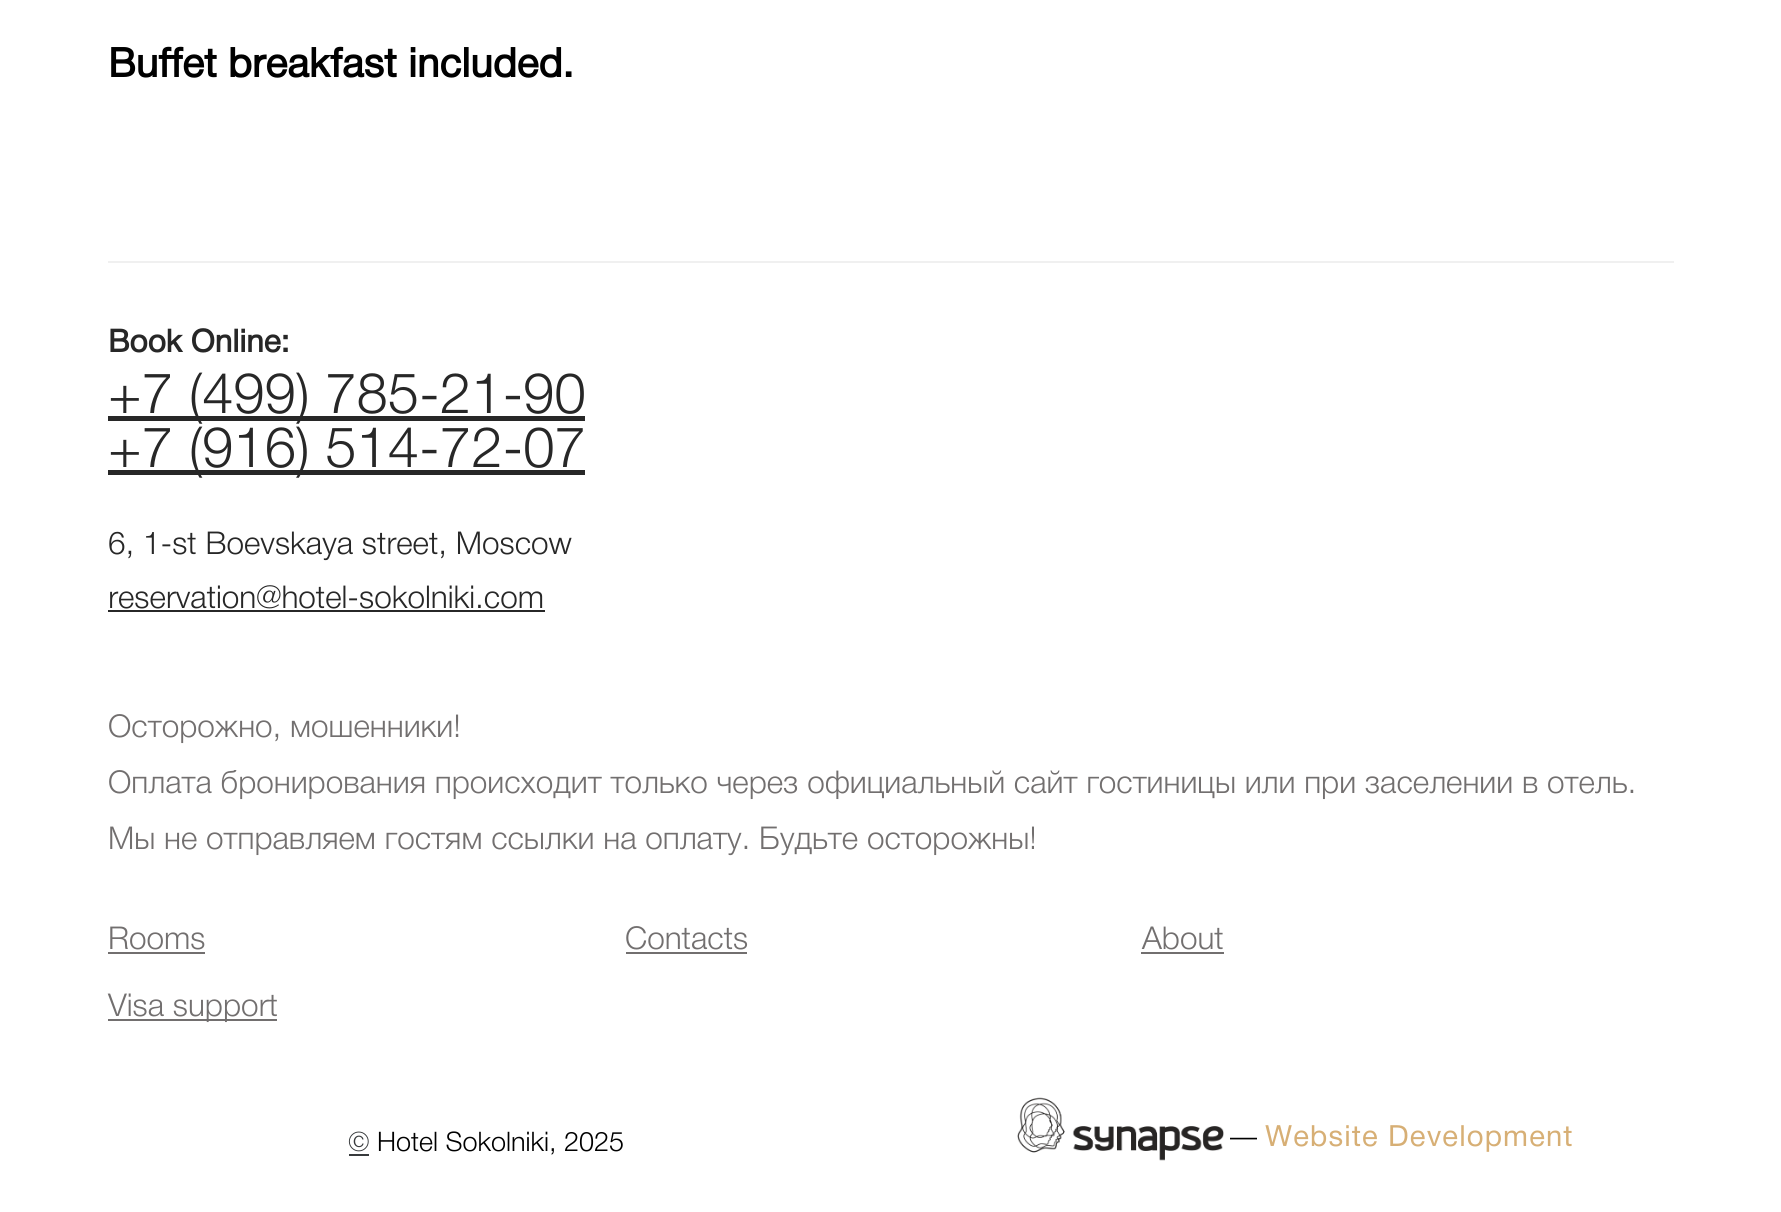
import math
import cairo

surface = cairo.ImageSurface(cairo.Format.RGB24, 1781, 1212)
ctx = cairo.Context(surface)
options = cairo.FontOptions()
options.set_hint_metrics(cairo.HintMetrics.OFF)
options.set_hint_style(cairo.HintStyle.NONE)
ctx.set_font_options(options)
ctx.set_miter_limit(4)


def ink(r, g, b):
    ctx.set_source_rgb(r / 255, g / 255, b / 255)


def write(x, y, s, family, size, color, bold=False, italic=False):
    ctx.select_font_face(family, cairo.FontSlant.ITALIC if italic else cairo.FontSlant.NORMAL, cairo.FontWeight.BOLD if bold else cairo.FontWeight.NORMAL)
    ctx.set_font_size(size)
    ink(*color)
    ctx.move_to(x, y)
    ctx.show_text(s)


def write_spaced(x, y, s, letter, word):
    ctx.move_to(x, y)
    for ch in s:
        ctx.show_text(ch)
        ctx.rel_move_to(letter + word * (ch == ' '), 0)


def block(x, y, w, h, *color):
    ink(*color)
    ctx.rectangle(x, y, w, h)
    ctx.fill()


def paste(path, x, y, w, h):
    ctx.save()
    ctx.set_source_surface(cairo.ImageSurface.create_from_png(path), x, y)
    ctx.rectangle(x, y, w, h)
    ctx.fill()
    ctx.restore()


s1 = dict(family="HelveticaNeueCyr", size=40.5, color=(0, 0, 0), bold=True)
s2 = dict(family="HelveticaNeueCyr", size=31.5, color=(39, 39, 39), bold=True)
s3 = dict(family="HelveticaNeueCyr Light", size=56.25, color=(39, 39, 39))
s4 = dict(family="HelveticaNeueCyr Light", size=31.5, color=(39, 39, 39))
s5 = dict(family="HelveticaNeueCyr Light", size=31.5, color=(114, 111, 111))
s6 = dict(family="HelveticaNeueCyr Light", size=27, color=(55, 58, 60))
s7 = dict(family="HelveticaNeueCyr Light", size=27, color=(0, 0, 0))

ink(255, 255, 255)
ctx.paint()
write(108, 77, "Buffet breakfast included.", **s1)
block(108, 261, 1566, 2, 240, 240, 240)
write(108, 352, "Book Online:", **s2)
block(108, 416, 477, 5, 39, 39, 39)
write(108, 413, "+7 (499) 785-21-90", **s3)
block(108, 470, 477, 5, 39, 39, 39)
write(108, 467, "+7 (916) 514-72-07", **s3)
write(108, 554, "6, 1-st Boevskaya street, Moscow", **s4)
write(108, 608, "reservation@hotel-sokolniki.com", **s4)
block(108, 610, 437, 2, 39, 39, 39)
write(108, 737, "Осторожно, мошенники!", **s5)
write(108, 793, "Оплата бронирования происходит только через официальный сайт гостиницы или при заселении в отель.", **s5)
write(108, 849, "Мы не отправляем гостям ссылки на оплату. Будьте осторожны!", **s5)
write(108, 949, "Rooms", **s5)
block(108, 952, 97, 2, 114, 111, 111)
write(625, 949, "Contacts", **s5)
block(626, 952, 121, 2, 114, 111, 111)
write(1142, 949, "About", **s5)
block(1141, 952, 83, 2, 114, 111, 111)
block(108, 1019, 169, 2, 114, 111, 111)
write(108, 1016, "Visa support", **s5)
write(348, 1151, "©", **s6)
block(349, 1154, 20, 2, 55, 58, 60)
write(377, 1151, "Hotel Sokolniki, 2025", **s7)
paste("pic1.png", 1017, 1097, 207, 64)
write(1230, 1146, "—", **s7)
ctx.select_font_face("HelveticaNeueCyr")
ctx.set_font_size(29.25)
ink(215, 175, 117)
write_spaced(1265, 1146, "Website Development", 1.1, 0)
surface.write_to_png("screenshot.png")
